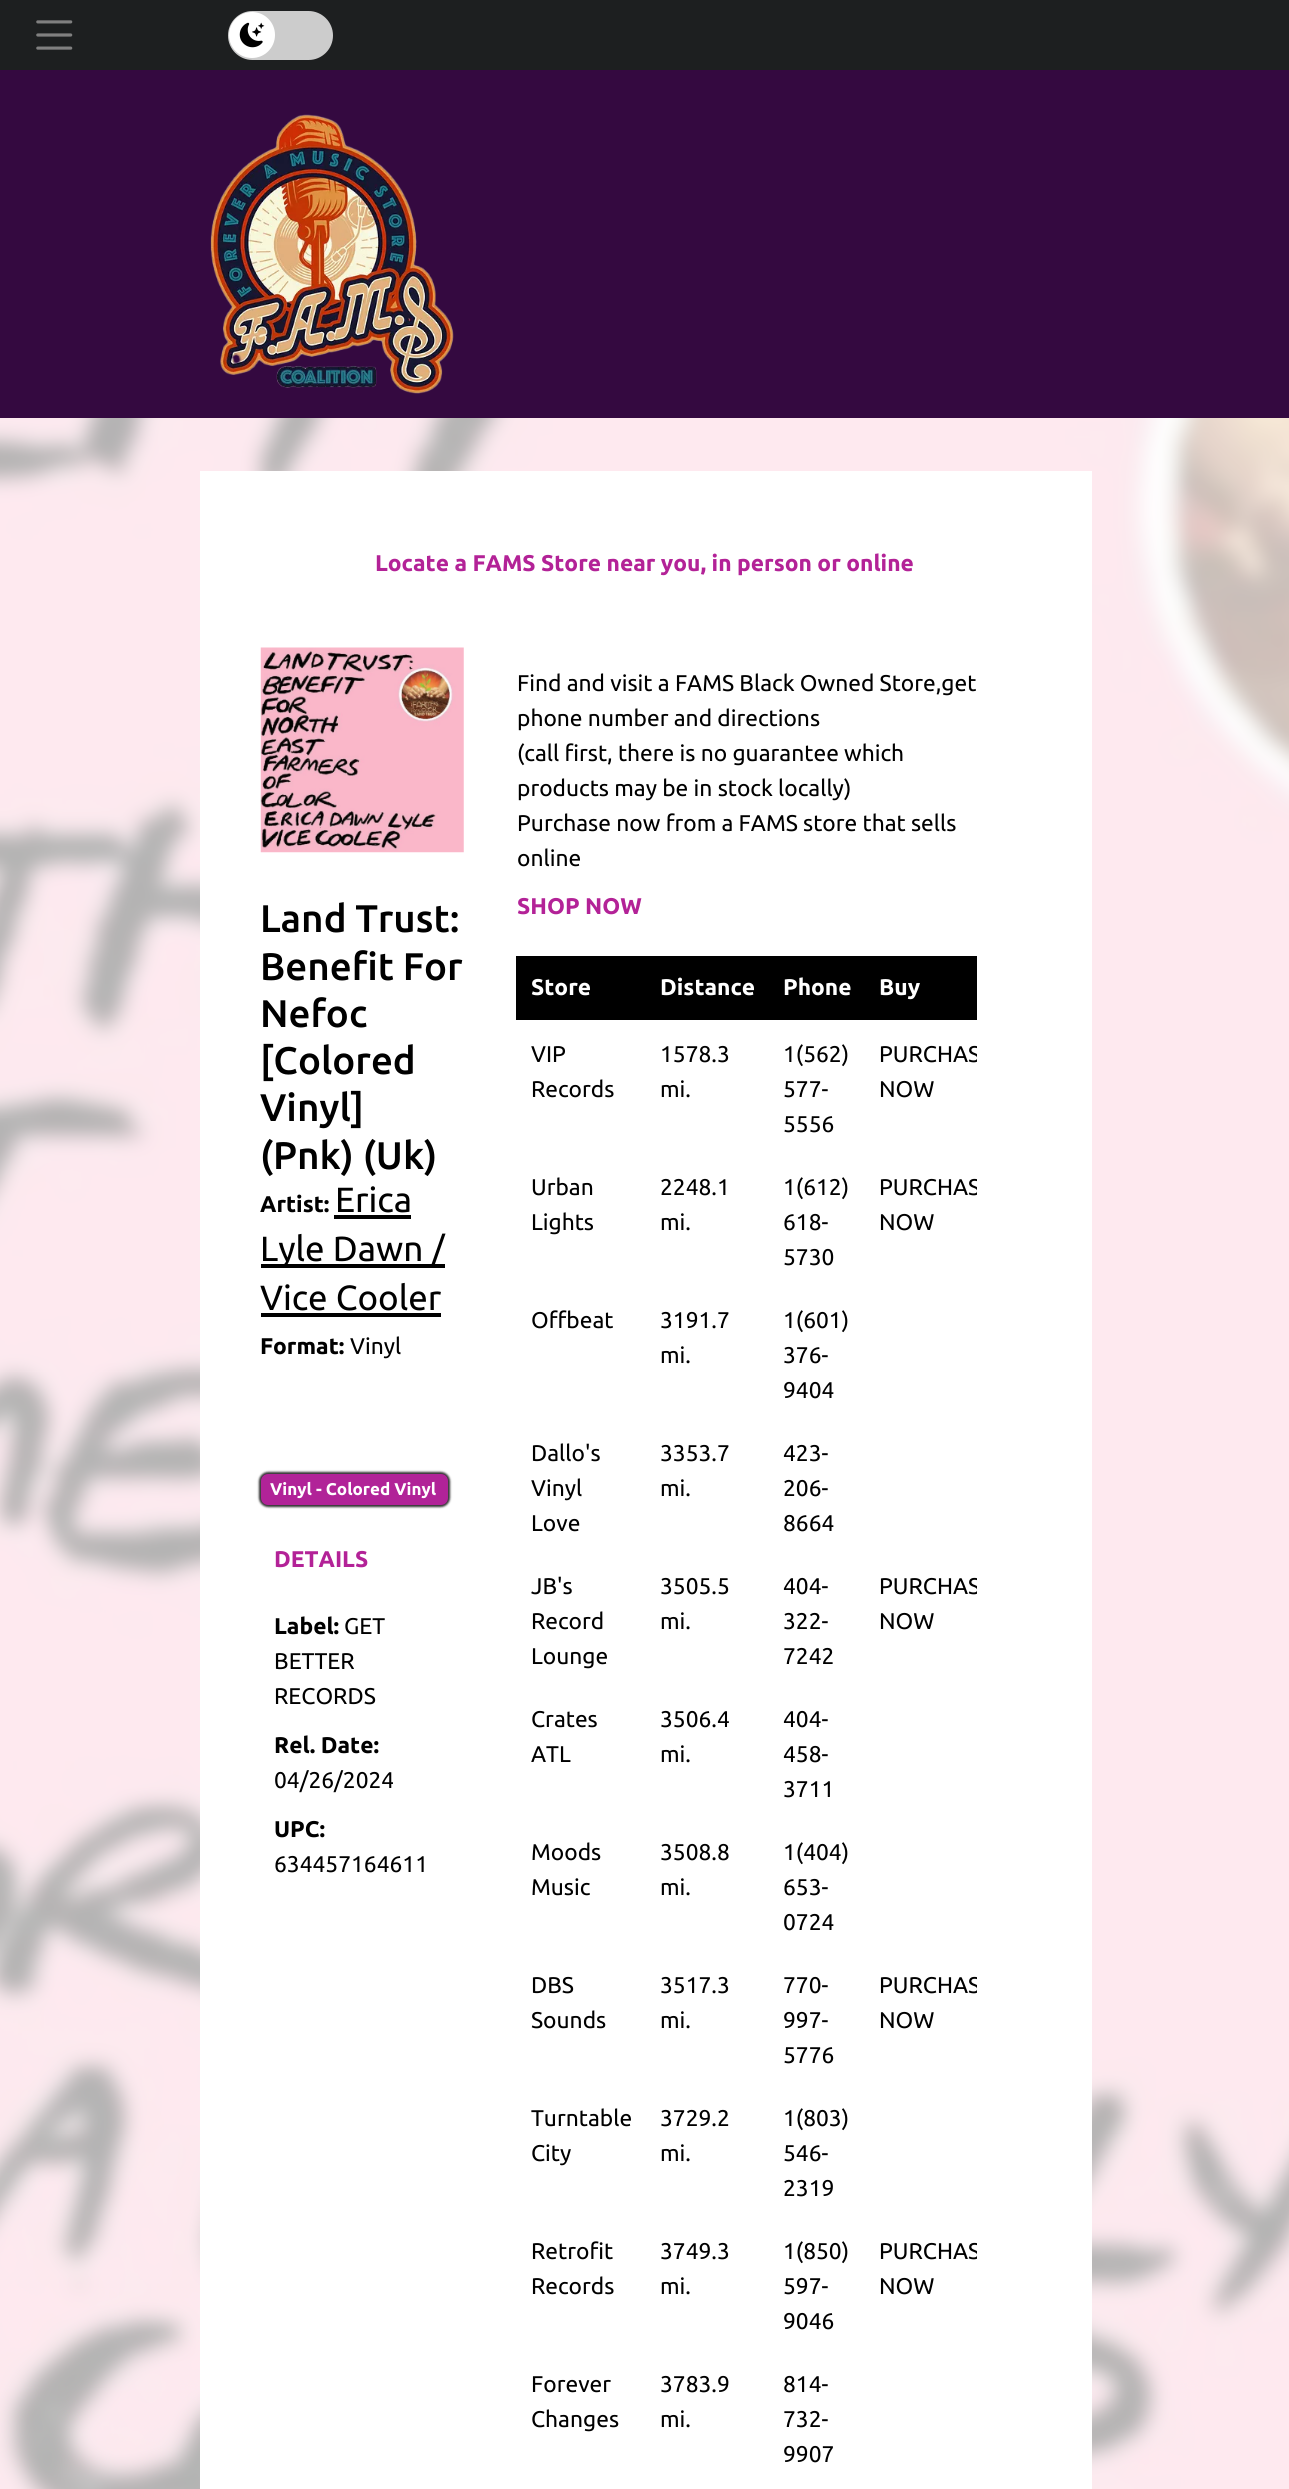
import math
import cairo

surface = cairo.ImageSurface(cairo.Format.RGB24, 1289, 2489)
ctx = cairo.Context(surface)
options = cairo.FontOptions()
options.set_hint_metrics(cairo.HintMetrics.OFF)
options.set_hint_style(cairo.HintStyle.NONE)
ctx.set_font_options(options)
ctx.set_miter_limit(4)


def ink(r, g, b):
    ctx.set_source_rgb(r / 255, g / 255, b / 255)


def write(x, y, s, family, size, color, bold=False, italic=False):
    ctx.select_font_face(family, cairo.FontSlant.ITALIC if italic else cairo.FontSlant.NORMAL, cairo.FontWeight.BOLD if bold else cairo.FontWeight.NORMAL)
    ctx.set_font_size(size)
    ink(*color)
    ctx.move_to(x, y)
    ctx.show_text(s)


def block(x, y, w, h, *color):
    ink(*color)
    ctx.rectangle(x, y, w, h)
    ctx.fill()


def round_path(x, y, w, h, r):
    ctx.new_sub_path()
    for i, (u, v) in enumerate([(x + w - r, y + h - r), (x + r, y + h - r), (x + r, y + r), (x + w - r, y + r)]):
        ctx.arc(u, v, r, i * math.pi / 2, (i + 1) * math.pi / 2)
    ctx.close_path()


def blur_box(x, y, w, h, r, blur, alpha):
    ctx.push_group_with_content(cairo.Content.ALPHA)
    ctx.set_operator(cairo.Operator.SOURCE)
    for i in range(15, -16, -2):
        e = blur * i / 6
        if min(w, h) + 2 * e > 0:
            ctx.set_source_rgba(0, 0, 0, alpha * math.erfc((i - 1) / 8.5) / 2)
            round_path(x - e, y - e, w + 2 * e, h + 2 * e, max(0, min(r + e + blur * .6, min(w, h) / 2 + e)))
            ctx.fill()
    ctx.mask(ctx.pop_group())


def paste(path, x, y, w, h):
    ctx.save()
    ctx.set_source_surface(cairo.ImageSurface.create_from_png(path), x, y)
    ctx.rectangle(x, y, w, h)
    ctx.fill()
    ctx.restore()


s1 = dict(family="Ubuntu", size=22.75, color=(179, 34, 151), bold=True)
s2 = dict(family="Ubuntu Medium", size=38.5, color=(0, 0, 0))
s3 = dict(family="Ubuntu", size=22.75, color=(0, 0, 0), bold=True)
s4 = dict(family="Ubuntu", size=35, color=(0, 0, 0))
s5 = dict(family="Ubuntu", size=22.75, color=(0, 0, 0))
s6 = dict(family="Ubuntu", size=17, color=(255, 255, 255), bold=True)
s7 = dict(family="Ubuntu", size=22.75, color=(255, 255, 255), bold=True)

ink(255, 255, 255)
ctx.paint()
paste("pic1.png", 0, 418, 1289, 2071)
block(0, 0, 1289, 70, 29, 31, 32)
paste("pic2.png", 36, 20, 37, 30)
ink(204, 204, 204)
round_path(228, 11, 105, 49, 24.5)
ctx.fill()
ink(255, 255, 255)
ctx.arc(252, 35, 23, 0, 2 * math.pi)
ctx.fill()
paste("pic3.png", 239, 22, 26, 26)
block(0, 70, 1289, 348, 52, 9, 64)
paste("pic4.png", 210, 114, 244, 280)
block(200, 471, 892, 2018, 255, 255, 255)
write(375, 571, "Locate a FAMS Store near you, in person or online", **s1)
paste("pic5.png", 260, 647, 204, 206)
write(260, 932, "Land Trust:", **s2)
write(260, 980, "Benefit For", **s2)
write(260, 1027, "Nefoc", **s2)
write(260, 1074, "[Colored", **s2)
write(260, 1121, "Vinyl]", **s2)
write(260, 1169, "(Pnk) (Uk)", **s2)
write(260, 1212, "Artist:", **s3)
block(334, 1215, 77, 4, 0, 0, 0)
write(335, 1212, "Erica", **s4)
block(261, 1264, 184, 4, 0, 0, 0)
write(260, 1261, "Lyle Dawn /", **s4)
write(260, 1310, "Vice Cooler", **s4)
block(261, 1313, 180, 4, 0, 0, 0)
write(260, 1354, "Format:", **s3)
write(350, 1354, "Vinyl", **s5)
ink(51, 51, 51)
blur_box(259, 1472, 191, 35, 9, 1, 1)
ink(177, 35, 152)
round_path(263, 1476, 183, 27, 5)
ctx.fill_preserve()
ctx.set_line_width(4)
ctx.stroke()
write(270, 1495, "Vinyl - Colored Vinyl", **s6)
write(274, 1567, "DETAILS", **s1)
write(274, 1634, "Label:", **s3)
write(344, 1634, "GET", **s5)
write(274, 1669, "BETTER", **s5)
write(274, 1704, "RECORDS", **s5)
write(274, 1753, "Rel. Date:", **s3)
write(274, 1788, "04/26/2024", **s5)
write(274, 1837, "UPC:", **s3)
write(274, 1872, "634457164611", **s5)
write(517, 691, "Find and visit a FAMS Black Owned Store,get", **s5)
write(517, 726, "phone number and directions", **s5)
write(517, 761, "(call first, there is no guarantee which", **s5)
write(517, 796, "products may be in stock locally)", **s5)
write(517, 831, "Purchase now from a FAMS store that sells", **s5)
write(517, 866, "online", **s5)
write(517, 914, "SHOP NOW", **s1)
block(516, 956, 461, 64, 0, 0, 0)
write(531, 995, "Store", **s7)
write(660, 995, "Distance", **s7)
write(783, 995, "Phone", **s7)
write(879, 995, "Buy", **s7)
write(531, 1062, "VIP", **s5)
write(531, 1097, "Records", **s5)
write(660, 1062, "1578.3", **s5)
write(660, 1097, "mi.", **s5)
write(783, 1062, "1(562)", **s5)
write(783, 1097, "577-", **s5)
write(783, 1132, "5556", **s5)
ctx.save()
ctx.rectangle(516, 956, 461, 1529)
ctx.clip()
write(879, 1062, "PURCHAS", **s5)
ctx.restore()
write(879, 1097, "NOW", **s5)
write(531, 1195, "Urban", **s5)
write(531, 1230, "Lights", **s5)
write(660, 1195, "2248.1", **s5)
write(660, 1230, "mi.", **s5)
write(783, 1195, "1(612)", **s5)
write(783, 1230, "618-", **s5)
write(783, 1265, "5730", **s5)
ctx.save()
ctx.rectangle(516, 956, 461, 1529)
ctx.clip()
write(879, 1195, "PURCHAS", **s5)
ctx.restore()
write(879, 1230, "NOW", **s5)
write(531, 1328, "Offbeat", **s5)
write(660, 1328, "3191.7", **s5)
write(660, 1363, "mi.", **s5)
write(783, 1328, "1(601)", **s5)
write(783, 1363, "376-", **s5)
write(783, 1398, "9404", **s5)
write(531, 1461, "Dallo's", **s5)
write(531, 1496, "Vinyl", **s5)
write(531, 1531, "Love", **s5)
write(660, 1461, "3353.7", **s5)
write(660, 1496, "mi.", **s5)
write(783, 1461, "423-", **s5)
write(783, 1496, "206-", **s5)
write(783, 1531, "8664", **s5)
write(531, 1594, "JB's", **s5)
write(531, 1629, "Record", **s5)
write(531, 1664, "Lounge", **s5)
write(660, 1594, "3505.5", **s5)
write(660, 1629, "mi.", **s5)
write(783, 1594, "404-", **s5)
write(783, 1629, "322-", **s5)
write(783, 1664, "7242", **s5)
ctx.save()
ctx.rectangle(516, 956, 461, 1529)
ctx.clip()
write(879, 1594, "PURCHAS", **s5)
ctx.restore()
write(879, 1629, "NOW", **s5)
write(531, 1727, "Crates", **s5)
write(531, 1762, "ATL", **s5)
write(660, 1727, "3506.4", **s5)
write(660, 1762, "mi.", **s5)
write(783, 1727, "404-", **s5)
write(783, 1762, "458-", **s5)
write(783, 1797, "3711", **s5)
write(531, 1860, "Moods", **s5)
write(531, 1895, "Music", **s5)
write(660, 1860, "3508.8", **s5)
write(660, 1895, "mi.", **s5)
write(783, 1860, "1(404)", **s5)
write(783, 1895, "653-", **s5)
write(783, 1930, "0724", **s5)
write(531, 1993, "DBS", **s5)
write(531, 2028, "Sounds", **s5)
write(660, 1993, "3517.3", **s5)
write(660, 2028, "mi.", **s5)
write(783, 1993, "770-", **s5)
write(783, 2028, "997-", **s5)
write(783, 2063, "5776", **s5)
ctx.save()
ctx.rectangle(516, 956, 461, 1529)
ctx.clip()
write(879, 1993, "PURCHAS", **s5)
ctx.restore()
write(879, 2028, "NOW", **s5)
write(531, 2126, "Turntable", **s5)
write(531, 2161, "City", **s5)
write(660, 2126, "3729.2", **s5)
write(660, 2161, "mi.", **s5)
write(783, 2126, "1(803)", **s5)
write(783, 2161, "546-", **s5)
write(783, 2196, "2319", **s5)
write(531, 2259, "Retrofit", **s5)
write(531, 2294, "Records", **s5)
write(660, 2259, "3749.3", **s5)
write(660, 2294, "mi.", **s5)
write(783, 2259, "1(850)", **s5)
write(783, 2294, "597-", **s5)
write(783, 2329, "9046", **s5)
ctx.save()
ctx.rectangle(516, 956, 461, 1529)
ctx.clip()
write(879, 2259, "PURCHAS", **s5)
ctx.restore()
write(879, 2294, "NOW", **s5)
write(531, 2392, "Forever", **s5)
write(531, 2427, "Changes", **s5)
write(660, 2392, "3783.9", **s5)
write(660, 2427, "mi.", **s5)
write(783, 2392, "814-", **s5)
write(783, 2427, "732-", **s5)
write(783, 2462, "9907", **s5)
surface.write_to_png("screenshot.png")
